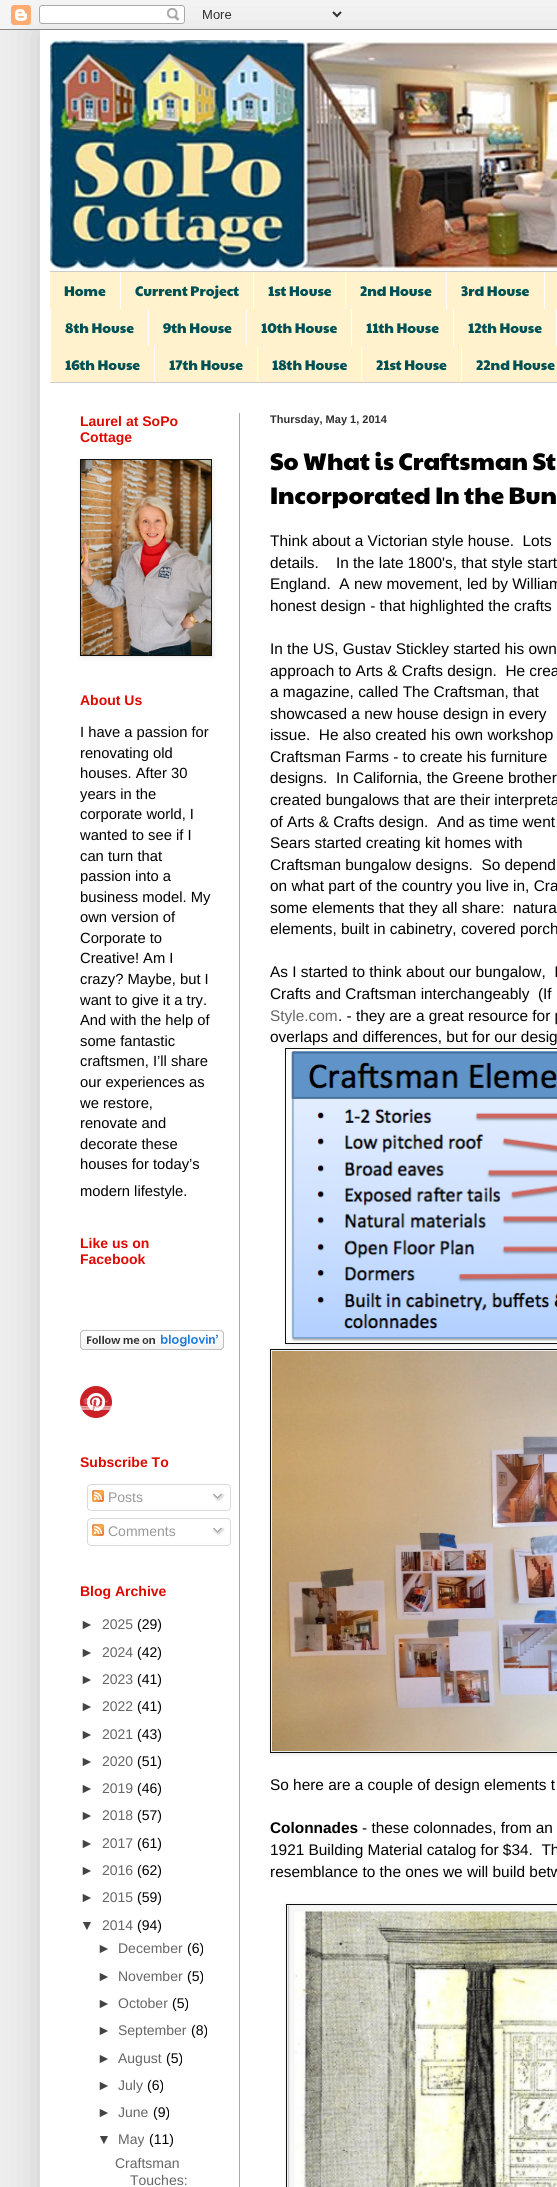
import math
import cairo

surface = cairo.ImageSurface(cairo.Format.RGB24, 557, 2187)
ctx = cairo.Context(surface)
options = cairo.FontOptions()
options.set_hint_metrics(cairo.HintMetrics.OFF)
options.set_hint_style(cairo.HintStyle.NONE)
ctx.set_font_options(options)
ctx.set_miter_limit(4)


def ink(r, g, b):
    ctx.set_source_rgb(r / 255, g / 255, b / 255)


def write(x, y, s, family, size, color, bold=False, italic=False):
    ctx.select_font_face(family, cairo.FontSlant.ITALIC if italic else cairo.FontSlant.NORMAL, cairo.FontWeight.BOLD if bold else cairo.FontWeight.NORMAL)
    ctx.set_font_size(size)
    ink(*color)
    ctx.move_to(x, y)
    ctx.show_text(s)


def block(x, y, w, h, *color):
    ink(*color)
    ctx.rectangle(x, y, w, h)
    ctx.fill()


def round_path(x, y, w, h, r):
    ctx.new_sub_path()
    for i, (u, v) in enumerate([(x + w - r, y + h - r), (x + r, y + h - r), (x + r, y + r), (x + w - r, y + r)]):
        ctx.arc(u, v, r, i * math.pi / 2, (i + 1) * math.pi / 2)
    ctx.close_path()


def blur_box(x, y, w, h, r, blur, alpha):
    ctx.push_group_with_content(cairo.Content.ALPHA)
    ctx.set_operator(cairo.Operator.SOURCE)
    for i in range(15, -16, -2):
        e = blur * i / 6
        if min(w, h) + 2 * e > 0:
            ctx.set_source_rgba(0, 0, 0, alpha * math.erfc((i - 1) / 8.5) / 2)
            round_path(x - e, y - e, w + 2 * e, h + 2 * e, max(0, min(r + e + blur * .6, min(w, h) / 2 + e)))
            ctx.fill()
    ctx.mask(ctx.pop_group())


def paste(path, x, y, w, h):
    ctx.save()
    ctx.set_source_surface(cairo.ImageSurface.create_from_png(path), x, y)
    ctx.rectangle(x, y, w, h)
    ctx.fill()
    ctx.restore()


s1 = dict(family="Paytone One", size=14, color=(0, 81, 85))
s2 = dict(family="Liberation Sans", size=14, color=(221, 9, 0), bold=True)
s3 = dict(family="Liberation Sans", size=14.75, color=(0, 0, 0))
s4 = dict(family="Liberation Sans", size=14, color=(153, 153, 153))
s5 = dict(family="Liberation Sans", size=14, color=(68, 68, 68))
s6 = dict(family="Liberation Sans", size=14, color=(102, 102, 102))
s7 = dict(family="Liberation Sans", size=14, color=(0, 0, 0))
s8 = dict(family="Liberation Sans", size=11, color=(48, 48, 48), bold=True)
s9 = dict(family="Paytone One", size=24, color=(0, 0, 0))
s10 = dict(family="Liberation Sans", size=15.4, color=(0, 0, 0))
s11 = dict(family="Liberation Sans", size=15.4, color=(102, 102, 102))
s12 = dict(family="Liberation Sans", size=15.4, color=(0, 0, 0), bold=True)

ink(238, 238, 238)
ctx.paint()
ink(0, 0, 0)
blur_box(40, 30, 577, 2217, 0, 20, 0.15)
paste("pic1.png", 0, 0, 557, 30)
block(40, 30, 517, 2157, 255, 255, 255)
paste("pic2.png", 50, 40, 507, 231)
block(50, 272, 507, 110, 255, 242, 204)
block(50, 271, 507, 1, 204, 204, 204)
block(50, 382, 507, 1, 204, 204, 204)
write(64, 296, "Home", **s1)
block(120, 272, 1, 37, 255, 255, 255)
write(135, 296, "Current Project", **s1)
block(253, 272, 1, 37, 255, 255, 255)
write(268, 296, "1st House", **s1)
block(345, 272, 1, 37, 255, 255, 255)
write(360, 296, "2nd House", **s1)
block(446, 272, 1, 37, 255, 255, 255)
write(461, 296, "3rd House", **s1)
block(544, 272, 1, 37, 255, 255, 255)
block(50, 309, 1, 73, 255, 255, 255)
write(65, 333, "8th House", **s1)
block(148, 309, 1, 37, 255, 255, 255)
write(163, 333, "9th House", **s1)
block(246, 309, 1, 37, 255, 255, 255)
write(261, 333, "10th House", **s1)
block(351, 309, 1, 37, 255, 255, 255)
write(366, 333, "11th House", **s1)
block(453, 309, 1, 37, 255, 255, 255)
write(468, 333, "12th House", **s1)
block(556, 309, 1, 37, 255, 255, 255)
write(65, 370, "16th House", **s1)
block(154, 346, 1, 36, 255, 255, 255)
write(169, 370, "17th House", **s1)
block(257, 346, 1, 36, 255, 255, 255)
write(272, 370, "18th House", **s1)
block(361, 346, 1, 36, 255, 255, 255)
write(376, 370, "21st House", **s1)
block(461, 346, 1, 36, 255, 255, 255)
write(476, 370, "22nd House", **s1)
block(239, 413, 1, 1774, 170, 170, 170)
write(80, 426, "Laurel at SoPo", **s2)
write(80, 442, "Cottage", **s2)
ink(0, 0, 0)
blur_box(81, 460, 132, 197, 0, 2.5, 0.1)
ctx.rectangle(80.5, 459.5, 131, 196)
ink(17, 17, 17)
ctx.set_line_width(1)
ctx.stroke()
paste("pic3.png", 81, 460, 130, 195)
write(80, 705, "About Us", **s2)
write(80, 737, "I have a passion for", **s3)
write(80, 758, "renovating old", **s3)
write(80, 778, "houses. After 30", **s3)
write(80, 799, "years in the", **s3)
write(80, 819, "corporate world, I", **s3)
write(80, 840, "wanted to see if I", **s3)
write(80, 861, "can turn that", **s3)
write(80, 881, "passion into a", **s3)
write(80, 902, "business model. My", **s3)
write(80, 922, "own version of", **s3)
write(80, 943, "Corporate to", **s3)
write(80, 963, "Creative! Am I", **s3)
write(80, 984, "crazy? Maybe, but I", **s3)
write(80, 1005, "want to give it a try.", **s3)
write(80, 1025, "And with the help of", **s3)
write(80, 1046, "some fantastic", **s3)
write(80, 1066, "craftsmen, I’ll share", **s3)
write(80, 1087, "our experiences as", **s3)
write(80, 1108, "we restore,", **s3)
write(80, 1128, "renovate and", **s3)
write(80, 1149, "decorate these", **s3)
write(80, 1169, "houses for today’s", **s3)
write(80, 1196, "modern lifestyle.", **s3)
write(80, 1248, "Like us on", **s2)
write(80, 1264, "Facebook", **s2)
paste("pic4.png", 80, 1330, 144, 20)
paste("pic5.png", 80, 1386, 32, 32)
write(80, 1467, "Subscribe To", **s2)
paste("pic6.png", 87, 1484, 144, 24)
paste("pic7.png", 92, 1490, 12, 12)
write(108, 1502, "Posts", **s4)
paste("pic8.png", 212, 1493, 13, 9)
paste("pic9.png", 87, 1508, 144, 3)
paste("pic10.png", 87, 1518, 144, 25)
paste("pic7.png", 92, 1524, 12, 12)
write(108, 1536, "Comments", **s4)
paste("pic8.png", 212, 1527, 13, 9)
paste("pic9.png", 87, 1543, 144, 3)
write(80, 1596, "Blog Archive", **s2)
write(80, 1629, "►", **s5)
write(102, 1629, "2025", **s6)
write(137, 1629, "(29)", **s7)
write(80, 1657, "►", **s5)
write(102, 1657, "2024", **s6)
write(137, 1657, "(42)", **s7)
write(80, 1684, "►", **s5)
write(102, 1684, "2023", **s6)
write(137, 1684, "(41)", **s7)
write(80, 1711, "►", **s5)
write(102, 1711, "2022", **s6)
write(137, 1711, "(41)", **s7)
write(80, 1739, "►", **s5)
write(102, 1739, "2021", **s6)
write(137, 1739, "(43)", **s7)
write(80, 1766, "►", **s5)
write(102, 1766, "2020", **s6)
write(137, 1766, "(51)", **s7)
write(80, 1793, "►", **s5)
write(102, 1793, "2019", **s6)
write(137, 1793, "(46)", **s7)
write(80, 1820, "►", **s5)
write(102, 1820, "2018", **s6)
write(137, 1820, "(57)", **s7)
write(80, 1848, "►", **s5)
write(102, 1848, "2017", **s6)
write(137, 1848, "(61)", **s7)
write(80, 1875, "►", **s5)
write(102, 1875, "2016", **s6)
write(137, 1875, "(62)", **s7)
write(80, 1902, "►", **s5)
write(102, 1902, "2015", **s6)
write(137, 1902, "(59)", **s7)
write(80, 1930, "▼", **s5)
write(102, 1930, "2014", **s6)
write(137, 1930, "(94)", **s7)
write(97, 1953, "►", **s5)
write(118, 1953, "December", **s6)
write(187, 1953, "(6)", **s7)
write(97, 1981, "►", **s5)
write(118, 1981, "November", **s6)
write(187, 1981, "(5)", **s7)
write(97, 2008, "►", **s5)
write(118, 2008, "October", **s6)
write(172, 2008, "(5)", **s7)
write(97, 2035, "►", **s5)
write(118, 2035, "September", **s6)
write(191, 2035, "(8)", **s7)
write(97, 2063, "►", **s5)
write(118, 2063, "August", **s6)
write(166, 2063, "(5)", **s7)
write(97, 2090, "►", **s5)
write(118, 2090, "July", **s6)
write(147, 2090, "(6)", **s7)
write(97, 2117, "►", **s5)
write(118, 2117, "June", **s6)
write(153, 2117, "(9)", **s7)
write(97, 2144, "▼", **s5)
write(118, 2144, "May", **s6)
write(149, 2144, "(11)", **s7)
write(115, 2168, "Craftsman", **s6)
write(130, 2185, "Touches:", **s6)
write(270, 423, "Thursday, May 1, 2014", **s8)
write(270, 470, "So What is Craftsman St", **s9)
write(270, 504, "Incorporated In the Bun", **s9)
write(270, 546, "Think about a Victorian style house.  Lots", **s10)
write(270, 568, "details.    In the late 1800's, that style start", **s10)
write(270, 589, "England.  A new movement, led by William", **s10)
write(270, 611, "honest design - that highlighted the crafts", **s10)
write(270, 654, "In the US, Gustav Stickley started his own", **s10)
write(270, 676, "approach to Arts & Crafts design.  He crea", **s10)
write(270, 697, "a magazine, called The Craftsman, that", **s10)
write(270, 719, "showcased a new house design in every", **s10)
write(270, 740, "issue.  He also created his own workshop", **s10)
write(270, 762, "Craftsman Farms - to create his furniture", **s10)
write(270, 783, "designs.  In California, the Greene brother", **s10)
write(270, 805, "created bungalows that are their interpreta", **s10)
write(270, 827, "of Arts & Crafts design.  And as time went", **s10)
write(270, 848, "Sears started creating kit homes with", **s10)
write(270, 870, "Craftsman bungalow designs.  So depend", **s10)
write(270, 891, "on what part of the country you live in, Cra", **s10)
write(270, 913, "some elements that they all share:  natura", **s10)
write(270, 934, "elements, built in cabinetry, covered porch", **s10)
write(270, 977, "As I started to think about our bungalow,  I", **s10)
write(270, 999, "Crafts and Craftsman interchangeably  (If", **s10)
write(270, 1021, "Style.com", **s11)
write(338, 1021, ". - they are a great resource for p", **s10)
write(270, 1042, "overlaps and differences, but for our desig", **s10)
ctx.save()
ctx.set_fill_rule(cairo.FillRule.EVEN_ODD)
ctx.new_path()
ctx.move_to(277, 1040)
ctx.line_to(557, 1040)
ctx.line_to(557, 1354)
ctx.line_to(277, 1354)
ctx.close_path()
ctx.move_to(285, 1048)
ctx.line_to(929, 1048)
ctx.line_to(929, 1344)
ctx.line_to(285, 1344)
ctx.close_path()
ctx.clip()
ink(0, 0, 0)
blur_box(286, 1049, 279, 296, 0, 2.5, 0.1)
ctx.restore()
ctx.rectangle(285.5, 1048.5, 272, 295)
ink(17, 17, 17)
ctx.stroke()
paste("pic11.png", 291, 1051, 266, 291)
ink(0, 0, 0)
blur_box(271, 1350, 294, 404, 0, 2.5, 0.1)
ctx.rectangle(270.5, 1349.5, 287, 403)
ink(17, 17, 17)
ctx.stroke()
paste("pic12.png", 272, 1351, 285, 400)
write(270, 1790, "So here are a couple of design elements t", **s10)
write(270, 1833, "Colonnades", **s12)
write(362, 1833, "- these colonnades, from an", **s10)
write(270, 1855, "1921 Building Material catalog for $34.  Th", **s10)
write(270, 1877, "resemblance to the ones we will build betw", **s10)
ink(0, 0, 0)
blur_box(287, 1905, 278, 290, 0, 2.5, 0.1)
ctx.rectangle(286.5, 1904.5, 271, 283)
ink(17, 17, 17)
ctx.stroke()
paste("pic13.png", 288, 1906, 269, 281)
surface.write_to_png("screenshot.png")
